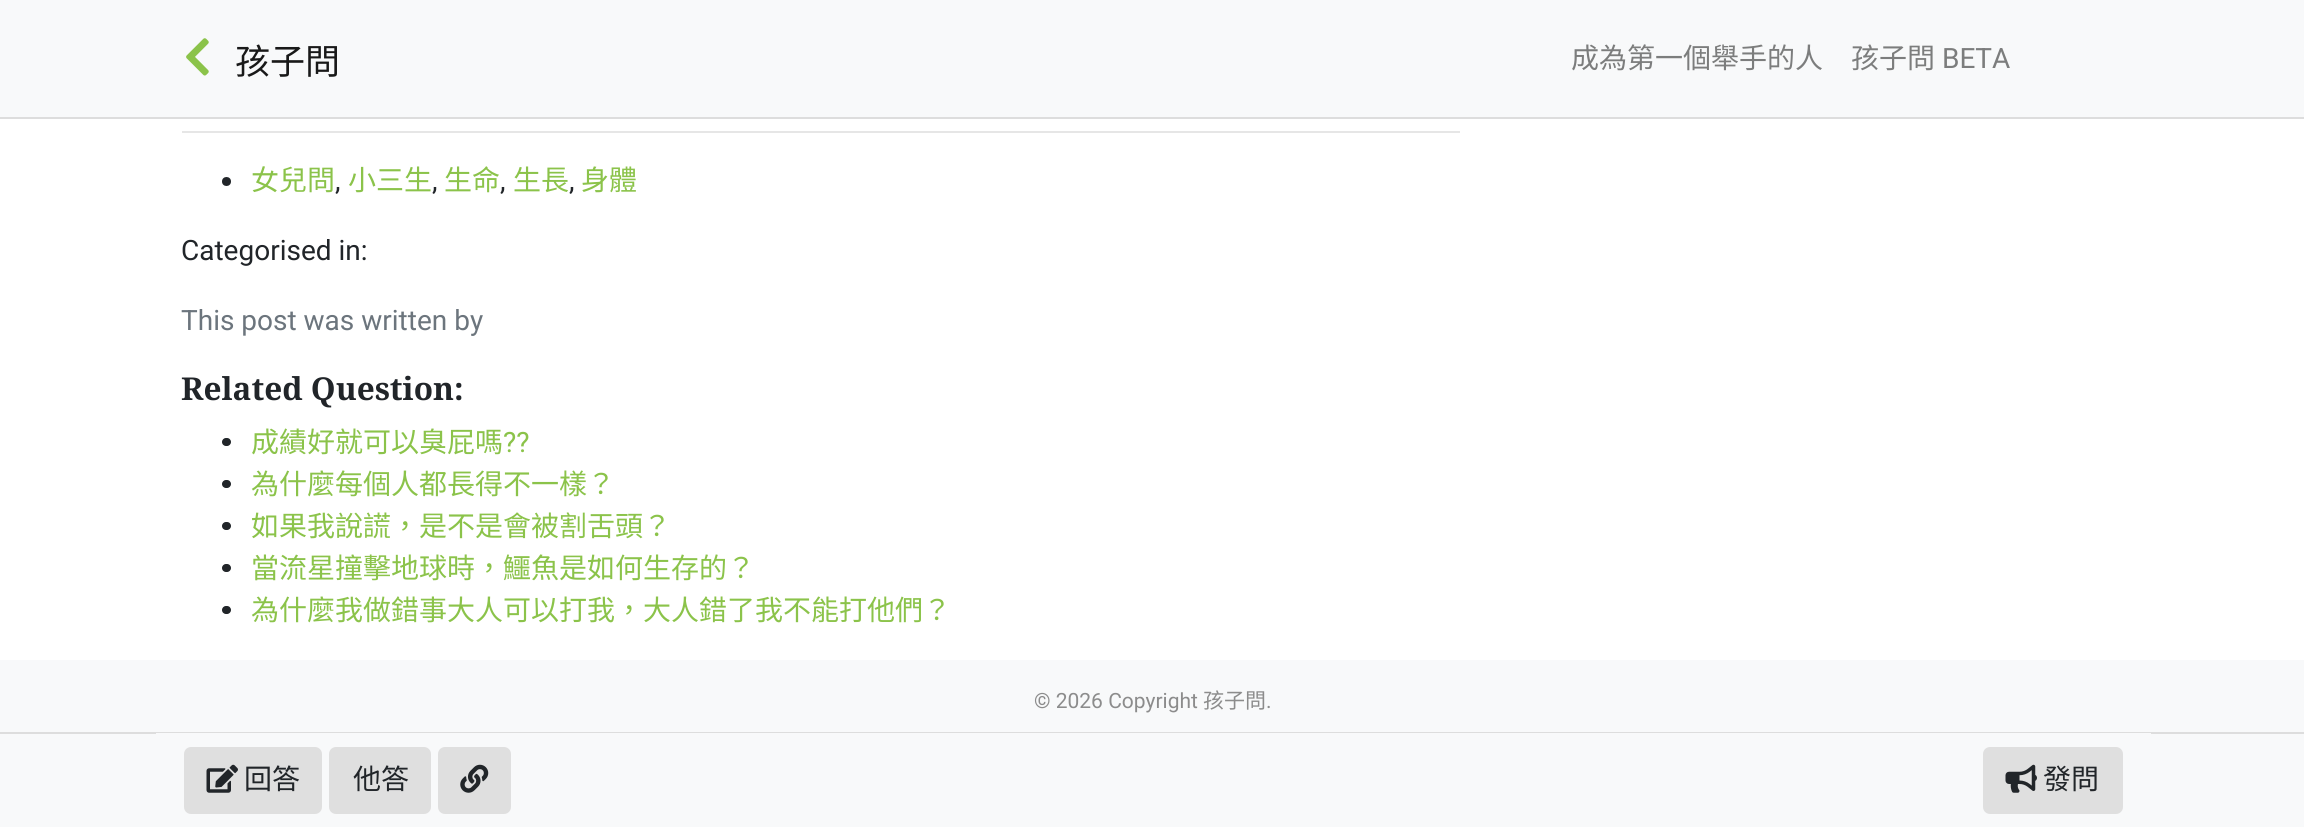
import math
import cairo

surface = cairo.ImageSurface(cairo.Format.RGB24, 2304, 827)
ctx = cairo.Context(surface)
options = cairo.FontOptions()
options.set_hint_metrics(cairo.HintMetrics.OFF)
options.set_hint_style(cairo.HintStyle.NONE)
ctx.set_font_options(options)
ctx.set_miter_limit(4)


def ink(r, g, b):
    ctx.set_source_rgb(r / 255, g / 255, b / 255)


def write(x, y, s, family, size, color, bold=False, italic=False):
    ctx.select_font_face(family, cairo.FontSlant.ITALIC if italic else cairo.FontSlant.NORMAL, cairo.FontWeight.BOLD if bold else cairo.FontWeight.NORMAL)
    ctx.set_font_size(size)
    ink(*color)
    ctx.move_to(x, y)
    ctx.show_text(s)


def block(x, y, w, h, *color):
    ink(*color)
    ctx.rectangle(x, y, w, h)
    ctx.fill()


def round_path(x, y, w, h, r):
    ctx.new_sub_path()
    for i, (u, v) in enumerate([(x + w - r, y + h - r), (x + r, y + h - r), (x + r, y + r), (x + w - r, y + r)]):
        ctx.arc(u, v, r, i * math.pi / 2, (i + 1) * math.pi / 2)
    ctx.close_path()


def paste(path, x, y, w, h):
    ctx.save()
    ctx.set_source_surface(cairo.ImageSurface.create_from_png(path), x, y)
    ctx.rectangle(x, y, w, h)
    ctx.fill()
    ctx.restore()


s1 = dict(family="Noto Sans CJK TC", size=35, color=(25, 25, 25))
s2 = dict(family="Noto Sans CJK TC", size=28, color=(124, 125, 125))
s3 = dict(family="Roboto", size=28, color=(124, 125, 125))
s4 = dict(family="Noto Sans CJK TC", size=28, color=(139, 195, 74))
s5 = dict(family="Roboto", size=28, color=(33, 37, 41))
s6 = dict(family="Roboto", size=28, color=(108, 117, 125))
s7 = dict(family="Noto Serif", size=31.5, color=(33, 37, 41), bold=True)
s8 = dict(family="Roboto", size=28, color=(139, 195, 74))
s9 = dict(family="Roboto", size=21, color=(140, 140, 140))
s10 = dict(family="Noto Sans CJK TC", size=21, color=(140, 140, 140))
s11 = dict(family="Noto Sans CJK TC", size=28, color=(33, 37, 41))

ink(255, 255, 255)
ctx.paint()
block(0, 0, 2304, 117, 248, 249, 250)
block(0, 117, 2304, 2, 221, 221, 221)
paste("pic1.png", 186, 38, 23, 38)
write(235, 74, "孩子問", **s1)
write(1571, 68, "成為第一個舉手的人", **s2)
write(1851, 68, "孩子問", **s2)
write(1942, 68, "BETA", **s3)
block(182, 131, 1278, 2, 230, 230, 230)
ink(33, 37, 41)
ctx.new_path()
ctx.arc(226.5, 181.5, 4.5, 0, 2 * math.pi)
ctx.fill()
write(251, 190, "女兒問", **s4)
write(348, 190, "小三生", **s4)
write(444, 190, "生命", **s4)
write(513, 190, "生長", **s4)
write(581, 190, "身體", **s4)
write(335, 190, ",", **s5)
write(432, 190, ",", **s5)
write(500, 190, ",", **s5)
write(569, 190, ",", **s5)
write(181, 260, "Categorised in:", **s5)
write(181, 330, "This post was written by", **s6)
write(181, 400, "Related Question:", **s7)
round_path(222, 438, 9, 8, 4)
ctx.fill()
write(251, 452, "成績好就可以臭屁嗎", **s4)
write(503, 452, "??", **s8)
ink(33, 37, 41)
round_path(222, 480, 9, 8, 4)
ctx.fill()
write(251, 494, "為什麼每個人都長得不一樣？", **s4)
ink(33, 37, 41)
round_path(222, 522, 9, 8, 4)
ctx.fill()
write(251, 536, "如果我說謊，是不是會被割舌頭？", **s4)
ink(33, 37, 41)
round_path(222, 564, 9, 8, 4)
ctx.fill()
write(251, 578, "當流星撞擊地球時，鱷魚是如何生存的？", **s4)
ink(33, 37, 41)
round_path(222, 606, 9, 8, 4)
ctx.fill()
write(251, 620, "為什麼我做錯事大人可以打我，大人錯了我不能打他們？", **s4)
block(0, 660, 2304, 167, 248, 249, 250)
write(1034, 708, "© 2026 Copyright", **s9)
write(1203, 708, "孩子問", **s10)
write(1266, 708, ".", **s9)
block(0, 732, 2304, 2, 221, 221, 221)
block(156, 733, 1995, 1, 248, 249, 250)
ink(223, 223, 223)
round_path(185, 748, 136, 65, 6)
ctx.fill_preserve()
ctx.stroke()
paste("pic2.png", 206, 764, 32, 29)
write(244, 789, "回答", **s11)
ink(223, 223, 223)
round_path(330, 748, 100, 65, 6)
ctx.fill_preserve()
ctx.stroke()
write(353, 789, "他答", **s11)
ink(223, 223, 223)
round_path(439, 748, 71, 65, 6)
ctx.fill_preserve()
ctx.stroke()
paste("pic3.png", 460, 764, 29, 29)
round_path(1984, 748, 138, 65, 6)
ctx.fill_preserve()
ctx.stroke()
paste("pic4.png", 2005, 764, 32, 29)
write(2043, 789, "發問", **s11)
surface.write_to_png("screenshot.png")
